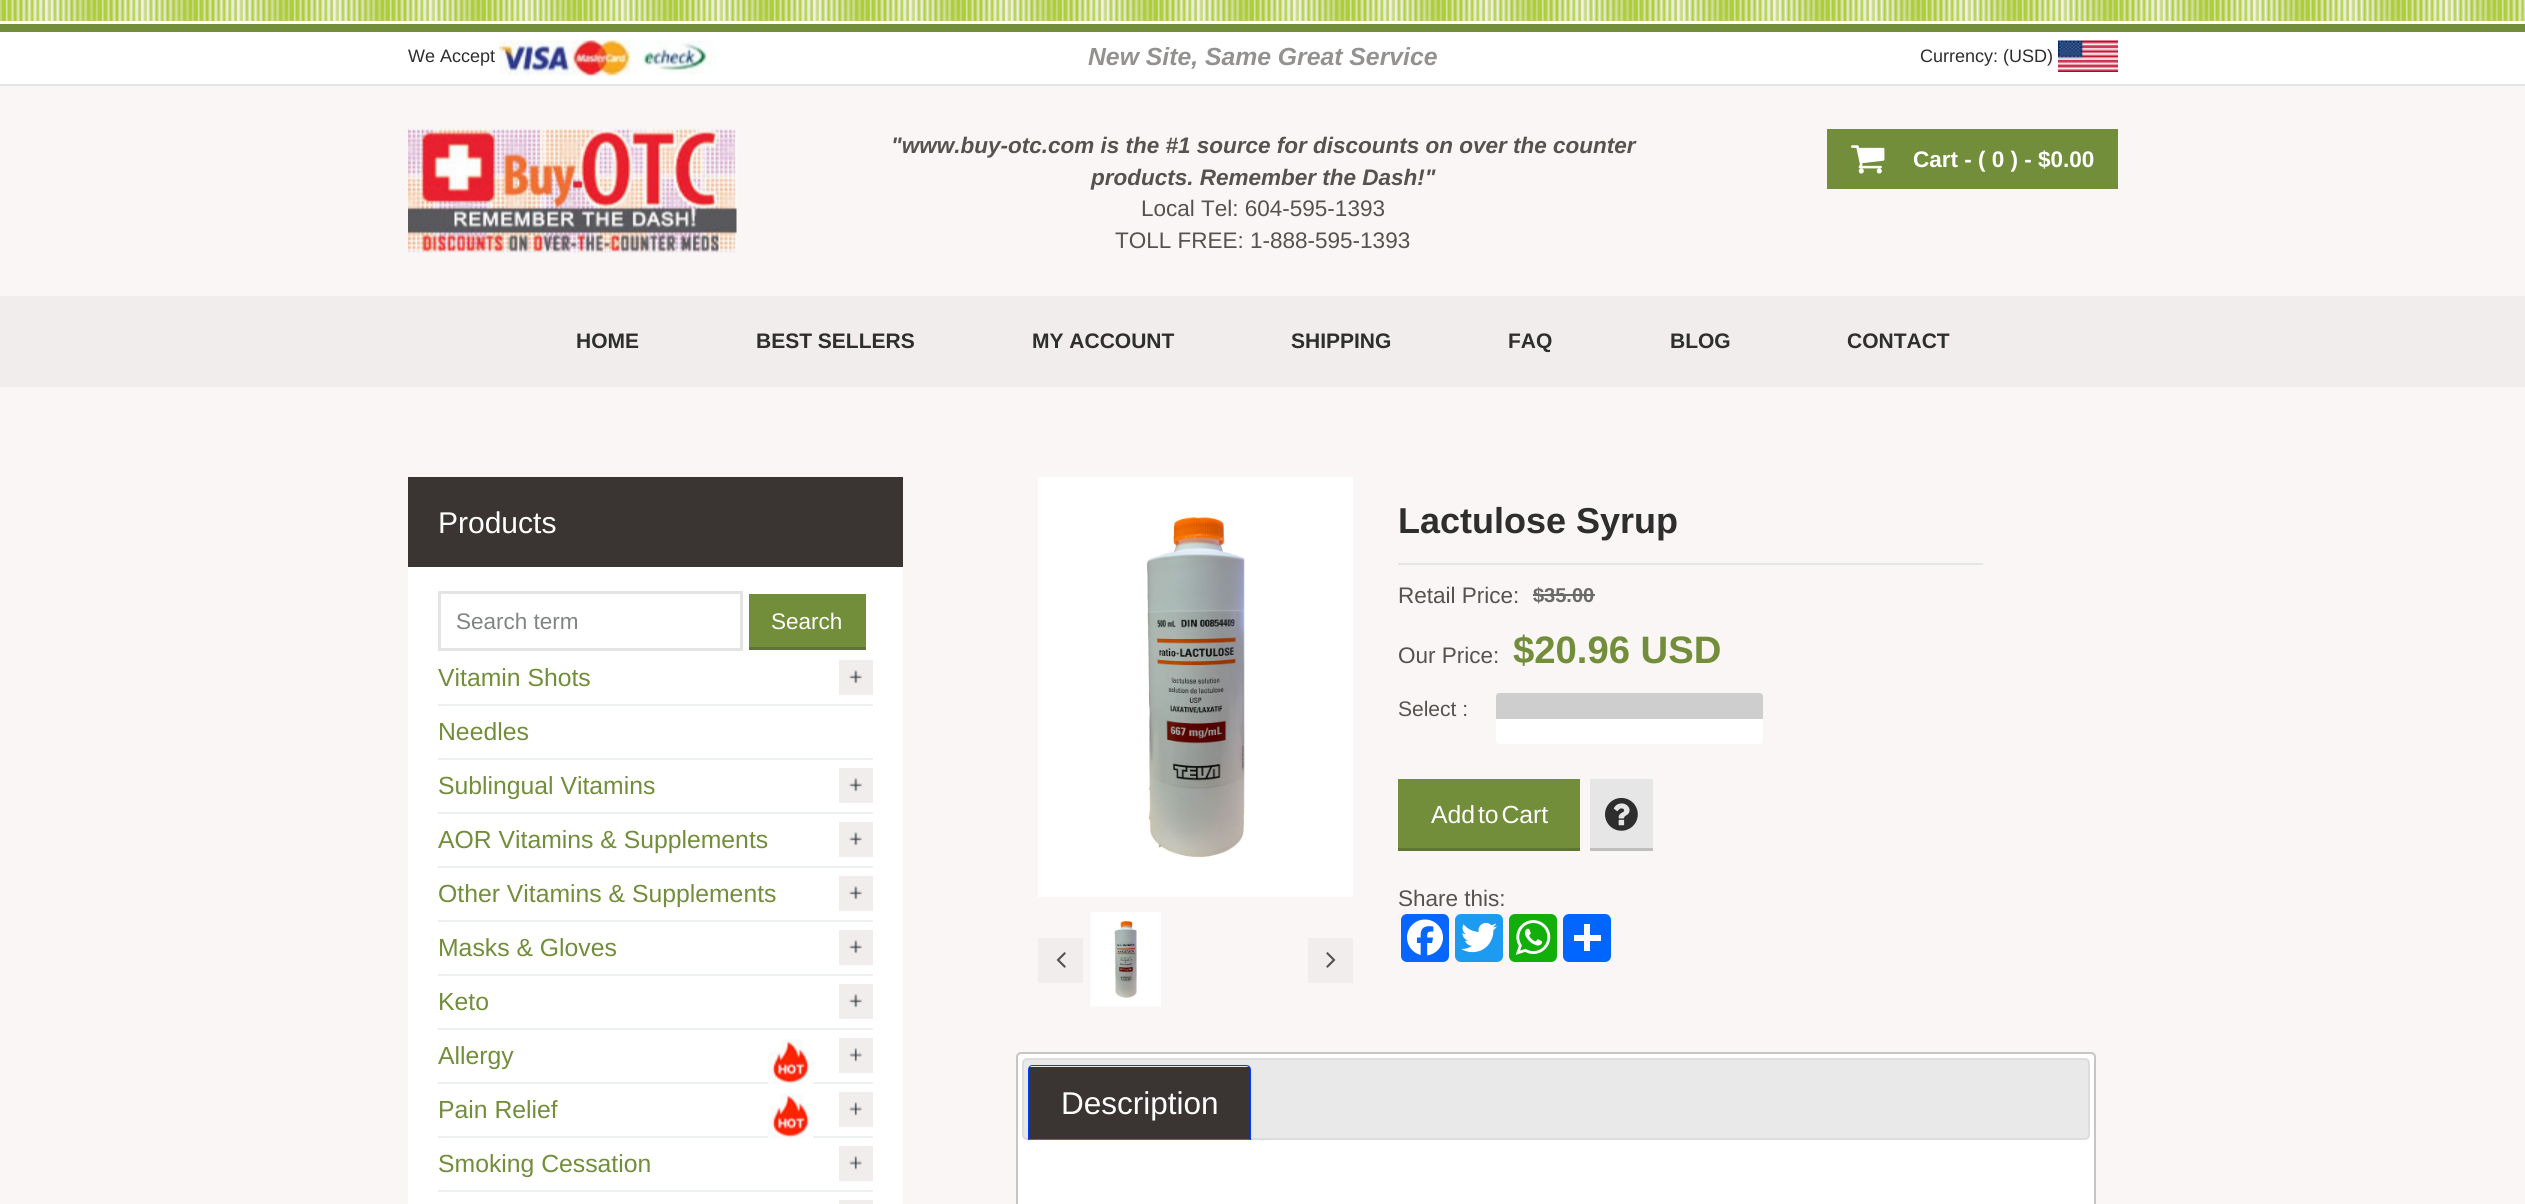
import math
import cairo

surface = cairo.ImageSurface(cairo.Format.RGB24, 2525, 1204)
ctx = cairo.Context(surface)
options = cairo.FontOptions()
options.set_hint_metrics(cairo.HintMetrics.OFF)
options.set_hint_style(cairo.HintStyle.NONE)
ctx.set_font_options(options)
ctx.set_miter_limit(4)


def ink(r, g, b):
    ctx.set_source_rgb(r / 255, g / 255, b / 255)


def write(x, y, s, family, size, color, bold=False, italic=False):
    ctx.select_font_face(family, cairo.FontSlant.ITALIC if italic else cairo.FontSlant.NORMAL, cairo.FontWeight.BOLD if bold else cairo.FontWeight.NORMAL)
    ctx.set_font_size(size)
    ink(*color)
    ctx.move_to(x, y)
    ctx.show_text(s)


def write_spaced(x, y, s, letter, word):
    ctx.move_to(x, y)
    for ch in s:
        ctx.show_text(ch)
        ctx.rel_move_to(letter + word * (ch == ' '), 0)


def block(x, y, w, h, *color):
    ink(*color)
    ctx.rectangle(x, y, w, h)
    ctx.fill()


def round_path(x, y, w, h, r):
    ctx.new_sub_path()
    for i, (u, v) in enumerate([(x + w - r, y + h - r), (x + r, y + h - r), (x + r, y + r), (x + w - r, y + r)]):
        ctx.arc(u, v, r, i * math.pi / 2, (i + 1) * math.pi / 2)
    ctx.close_path()


def paste(path, x, y, w, h):
    ctx.save()
    ctx.set_source_surface(cairo.ImageSurface.create_from_png(path), x, y)
    ctx.rectangle(x, y, w, h)
    ctx.fill()
    ctx.restore()


s1 = dict(family="Arimo", size=18, color=(46, 46, 46))
s2 = dict(family="Arimo", size=24.75, color=(147, 146, 144), bold=True, italic=True)
s3 = dict(family="Arimo", size=22.5, color=(84, 83, 80), bold=True, italic=True)
s4 = dict(family="Arimo", size=22.5, color=(84, 83, 80))
s5 = dict(family="Arimo", size=22.5, color=(255, 255, 255), bold=True)
s6 = dict(family="Arimo", size=21, color=(46, 46, 46), bold=True)
s7 = dict(family="Arimo", size=30, color=(255, 255, 255))
s8 = dict(family="Arimo", size=22.5, color=(129, 132, 132))
s9 = dict(family="Arimo", size=22.5, color=(255, 255, 255))
s10 = dict(family="Arimo", size=24.75, color=(114, 142, 58))
s11 = dict(family="Arimo", size=36, color=(46, 46, 46), bold=True)
s12 = dict(family="Arimo", size=20, color=(106, 106, 106), bold=True)
s13 = dict(family="Arimo", size=38.25, color=(114, 142, 58), bold=True)
s14 = dict(family="Arimo", size=21, color=(84, 83, 80))
s15 = dict(family="Liberation Sans", size=31.5, color=(255, 255, 255))

ink(255, 255, 255)
ctx.paint()
paste("pic1.png", 0, 0, 2525, 21)
block(0, 86, 2525, 210, 250, 246, 245)
block(0, 24, 2525, 8, 114, 142, 58)
block(0, 84, 2525, 2, 226, 230, 231)
write(408, 62, "We Accept", **s1)
paste("pic2.png", 499, 40, 217, 36)
write(1088, 65, "New Site, Same Great Service", **s2)
write(1920, 62, "Currency: (USD)", **s1)
paste("pic3.png", 2058, 40, 60, 32)
paste("pic4.png", 408, 128, 329, 125)
write(891, 153, "\"www.buy-otc.com is the #1 source for discounts on over the counter", **s3)
write(1091, 185, "products. Remember the Dash!\"", **s3)
write(1141, 216, "Local Tel: 604-595-1393", **s4)
write(1115, 248, "TOLL FREE: 1-888-595-1393", **s4)
block(1827, 129, 291, 60, 114, 142, 58)
paste("pic5.png", 1851, 145, 34, 29)
write(1913, 167, "Cart - ( 0 ) - $0.00", **s5)
block(0, 296, 2525, 91, 240, 237, 236)
write(576, 348, "HOME", **s6)
write(756, 348, "BEST SELLERS", **s6)
write(1032, 348, "MY ACCOUNT", **s6)
write(1291, 348, "SHIPPING", **s6)
write(1508, 348, "FAQ", **s6)
write(1670, 348, "BLOG", **s6)
write(1847, 348, "CONTACT", **s6)
block(0, 387, 2525, 817, 250, 246, 245)
block(408, 477, 495, 90, 58, 53, 51)
write(438, 533, "Products", **s7)
block(408, 567, 495, 637, 255, 255, 255)
ctx.rectangle(439.5, 592.5, 302, 57)
ink(228, 228, 226)
ctx.set_line_width(3)
ctx.stroke()
write(456, 629, "Search term", **s8)
block(749, 594, 117, 53, 114, 142, 58)
block(749, 647, 117, 3, 95, 118, 48)
write(771, 629, "Search", **s9)
block(438, 704, 435, 2, 236, 240, 241)
write(438, 686, "Vitamin Shots", **s10)
block(839, 660, 34, 35, 240, 237, 236)
paste("pic6.png", 848, 670, 15, 14)
block(438, 758, 435, 2, 236, 240, 241)
write(438, 740, "Needles", **s10)
block(438, 812, 435, 2, 236, 240, 241)
write(438, 794, "Sublingual Vitamins", **s10)
block(839, 768, 34, 35, 240, 237, 236)
paste("pic7.png", 848, 778, 15, 14)
block(438, 866, 435, 2, 236, 240, 241)
write(438, 848, "AOR Vitamins & Supplements", **s10)
block(839, 822, 34, 35, 240, 237, 236)
paste("pic6.png", 848, 832, 15, 14)
block(438, 920, 435, 2, 236, 240, 241)
write(438, 902, "Other Vitamins & Supplements", **s10)
block(839, 876, 34, 35, 240, 237, 236)
paste("pic6.png", 848, 886, 15, 14)
block(438, 974, 435, 2, 236, 240, 241)
write(438, 956, "Masks & Gloves", **s10)
block(839, 930, 34, 35, 240, 237, 236)
paste("pic6.png", 848, 940, 15, 14)
block(438, 1028, 435, 2, 236, 240, 241)
write(438, 1010, "Keto", **s10)
block(839, 984, 34, 35, 240, 237, 236)
paste("pic7.png", 848, 994, 15, 14)
block(438, 1082, 435, 2, 236, 240, 241)
write(438, 1064, "Allergy", **s10)
paste("pic8.png", 768, 1039, 45, 46)
block(839, 1038, 34, 35, 240, 237, 236)
paste("pic9.png", 849, 1048, 14, 15)
block(438, 1136, 435, 2, 236, 240, 241)
write(438, 1118, "Pain Relief", **s10)
paste("pic10.png", 768, 1093, 45, 46)
block(839, 1092, 34, 35, 240, 237, 236)
paste("pic9.png", 849, 1102, 14, 15)
block(438, 1190, 435, 2, 236, 240, 241)
write(438, 1172, "Smoking Cessation", **s10)
block(839, 1146, 34, 35, 240, 237, 236)
paste("pic9.png", 849, 1156, 14, 15)
block(839, 1200, 34, 4, 240, 237, 236)
paste("pic11.png", 1038, 477, 315, 420)
block(1038, 938, 45, 45, 240, 237, 236)
paste("pic12.png", 1056, 952, 10, 16)
paste("pic13.png", 1090, 912, 71, 95)
block(1308, 938, 45, 45, 240, 237, 236)
paste("pic14.png", 1326, 952, 10, 16)
write(1398, 533, "Lactulose Syrup", **s11)
block(1398, 563, 585, 2, 226, 230, 231)
write(1398, 603, "Retail Price:", **s4)
write(1533, 602, "$35.00", **s12)
block(1533, 594, 62, 2, 106, 106, 106)
write(1398, 663, "Our Price:", **s4)
write(1513, 663, "$20.96 USD", **s13)
write(1398, 716, "Select :", **s14)
ink(255, 255, 255)
round_path(1496, 693, 267, 51, 3)
ctx.fill()
ink(206, 206, 206)
ctx.new_path()
ctx.move_to(1499, 693)
ctx.line_to(1760, 693)
ctx.curve_to(1761.5, 693, 1763, 694.5, 1763, 696)
ctx.line_to(1763, 719)
ctx.line_to(1496, 719)
ctx.line_to(1496, 696)
ctx.curve_to(1496, 694.5, 1497.5, 693, 1499, 693)
ctx.close_path()
ctx.fill()
block(1398, 779, 182, 69, 114, 142, 58)
block(1398, 848, 182, 3, 95, 118, 48)
ctx.set_font_size(24.75)
ink(255, 255, 255)
write_spaced(1431, 823, "Add to Cart", 0, -4)
block(1590, 779, 63, 69, 230, 230, 230)
block(1590, 848, 63, 3, 191, 191, 191)
paste("pic15.png", 1605, 797, 33, 34)
write(1398, 906, "Share this:", **s4)
ink(8, 102, 255)
round_path(1401, 914, 48, 48, 6)
ctx.fill()
paste("pic16.png", 1407, 919, 36, 37)
ink(29, 155, 240)
round_path(1455, 914, 48, 48, 6)
ctx.fill()
paste("pic17.png", 1461, 922, 36, 31)
ink(18, 175, 10)
round_path(1509, 914, 48, 48, 6)
ctx.fill()
paste("pic18.png", 1515, 920, 36, 35)
ink(1, 102, 255)
round_path(1563, 914, 48, 48, 6)
ctx.fill()
block(1584, 924, 6, 27, 255, 255, 255)
block(1574, 935, 27, 6, 255, 255, 255)
round_path(1017, 1053, 1078, 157, 4)
ctx.fill_preserve()
ink(197, 197, 197)
ctx.set_line_width(2)
ctx.stroke()
ink(233, 233, 233)
round_path(1023, 1059, 1066, 80, 4)
ctx.fill_preserve()
ink(221, 221, 221)
ctx.stroke()
block(1029, 1139, 221, 1, 0, 127, 255)
ink(0, 62, 255)
ctx.set_fill_rule(cairo.FillRule.EVEN_ODD)
ctx.new_path()
ctx.move_to(1032, 1065)
ctx.line_to(1246, 1065)
ctx.curve_to(1249, 1065, 1251, 1067, 1251, 1070)
ctx.line_to(1251, 1140)
ctx.line_to(1028, 1140)
ctx.line_to(1028, 1070)
ctx.curve_to(1028, 1067, 1030, 1065, 1032, 1065)
ctx.close_path()
ctx.move_to(1032, 1066)
ctx.line_to(1246, 1066)
ctx.curve_to(1248, 1066, 1250, 1068, 1250, 1070)
ctx.line_to(1250, 1140)
ctx.line_to(1029, 1140)
ctx.line_to(1029, 1070)
ctx.curve_to(1029, 1068, 1030, 1066, 1032, 1066)
ctx.close_path()
ctx.fill()
block(1029, 1067, 221, 72, 58, 53, 51)
write(1061, 1114, "Description", **s15)
surface.write_to_png("screenshot.png")
